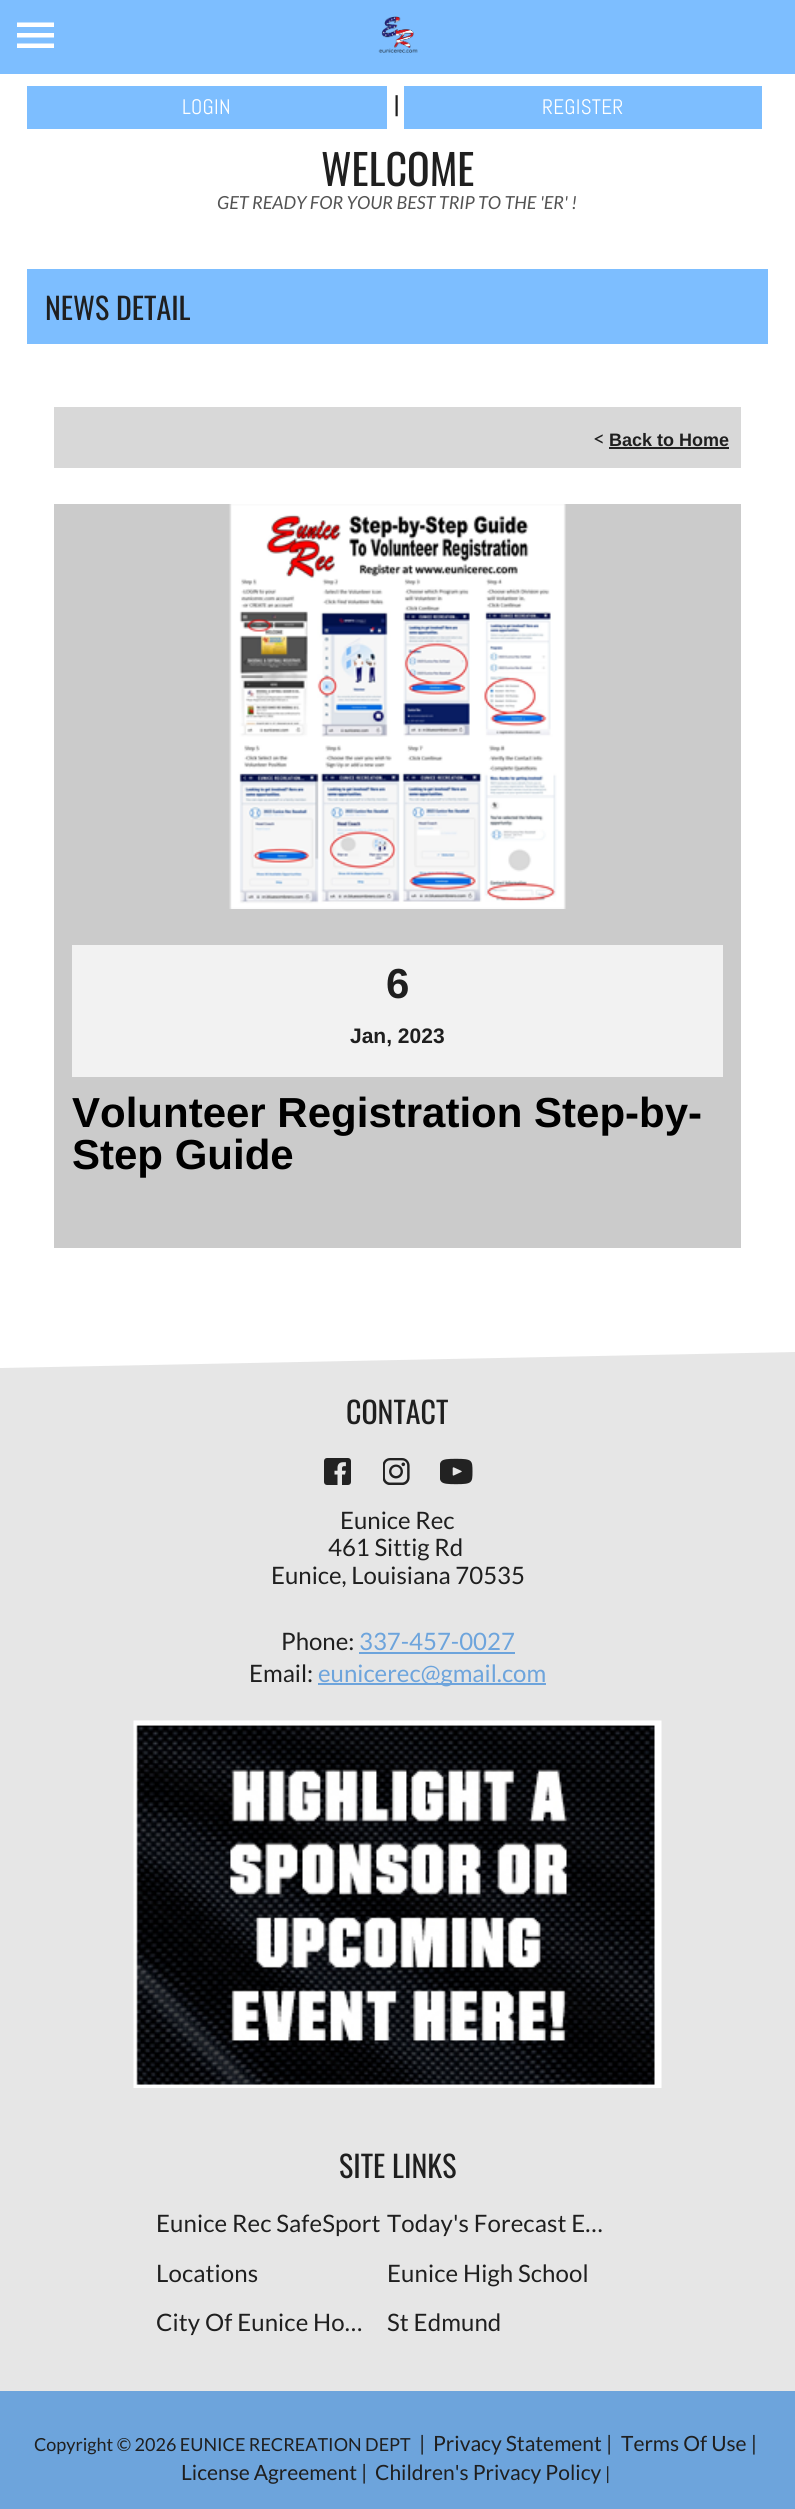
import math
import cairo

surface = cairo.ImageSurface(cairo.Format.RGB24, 795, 2509)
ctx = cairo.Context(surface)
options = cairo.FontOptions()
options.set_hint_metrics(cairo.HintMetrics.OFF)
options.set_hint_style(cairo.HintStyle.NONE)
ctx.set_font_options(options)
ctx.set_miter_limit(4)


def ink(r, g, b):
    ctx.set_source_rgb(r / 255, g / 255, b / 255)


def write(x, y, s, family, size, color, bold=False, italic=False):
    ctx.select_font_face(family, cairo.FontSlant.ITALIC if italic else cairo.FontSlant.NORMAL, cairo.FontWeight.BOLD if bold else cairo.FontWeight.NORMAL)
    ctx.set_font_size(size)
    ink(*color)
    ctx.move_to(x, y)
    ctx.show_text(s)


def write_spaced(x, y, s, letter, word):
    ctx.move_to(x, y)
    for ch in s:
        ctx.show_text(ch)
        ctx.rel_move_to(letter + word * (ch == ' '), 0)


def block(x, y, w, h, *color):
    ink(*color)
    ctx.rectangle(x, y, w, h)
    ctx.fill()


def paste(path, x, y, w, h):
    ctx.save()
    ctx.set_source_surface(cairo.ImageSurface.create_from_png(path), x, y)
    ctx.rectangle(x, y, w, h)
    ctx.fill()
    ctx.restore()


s1 = dict(family="Oswald", size=22, color=(31, 31, 31))
s2 = dict(family="Oswald", size=42, color=(31, 31, 31))
s3 = dict(family="Lato", size=18, color=(83, 83, 83), italic=True)
s4 = dict(family="Oswald", size=30, color=(31, 31, 31))
s5 = dict(family="Lato", size=21, color=(31, 31, 31))
s6 = dict(family="Liberation Sans", size=18, color=(31, 31, 31), bold=True)
s7 = dict(family="Liberation Sans", size=42, color=(31, 31, 31), bold=True)
s8 = dict(family="Liberation Sans", size=21, color=(31, 31, 31), bold=True)
s9 = dict(family="Liberation Sans", size=42, color=(0, 0, 0), bold=True)
s10 = dict(family="Lato", size=24, color=(31, 31, 31))
s11 = dict(family="Lato", size=24, color=(109, 164, 220))
s12 = dict(family="Lato", size=18, color=(31, 31, 31))

ink(255, 255, 255)
ctx.paint()
block(0, 0, 795, 74, 125, 190, 255)
ctx.save()
ctx.rectangle(17, 17, 37, 37)
ctx.clip()
ink(255, 255, 255)
ctx.new_path()
ctx.move_to(16.5, 22.5)
ctx.line_to(54, 22.5)
ctx.line_to(54, 27)
ctx.line_to(16.5, 27)
ctx.close_path()
ctx.move_to(16.5, 33)
ctx.line_to(54, 33)
ctx.line_to(54, 37.5)
ctx.line_to(16.5, 37.5)
ctx.close_path()
ctx.move_to(16.5, 43.5)
ctx.line_to(54, 43.5)
ctx.line_to(54, 48)
ctx.line_to(16.5, 48)
ctx.close_path()
ctx.fill()
ctx.restore()
paste("pic1.png", 378, 16, 40, 37)
block(27, 86, 360, 43, 125, 190, 255)
ctx.select_font_face("Abel")
ctx.set_font_size(21)
ink(255, 255, 255)
write_spaced(182, 114, "LOGIN", 0.25, 0)
write(394, 113, "|", **s1)
block(404, 86, 358, 43, 125, 190, 255)
ctx.select_font_face("Abel")
ctx.set_font_size(21)
ink(255, 255, 255)
write_spaced(542, 114, "REGISTER", 0.25, 0)
write(321, 186, "WELCOME", **s2)
write(217, 209, "GET READY FOR YOUR BEST TRIP TO THE 'ER' !", **s3)
block(27, 269, 741, 75, 125, 190, 255)
write(45, 320, "NEWS DETAIL", **s4)
block(54, 407, 687, 61, 216, 216, 216)
write(593, 446, "<", **s5)
write(609, 446, "Back to Home", **s6)
block(609, 447, 120, 2, 34, 34, 34)
block(54, 504, 687, 744, 203, 203, 203)
paste("pic2.png", 229, 504, 337, 405)
block(72, 945, 651, 132, 242, 242, 242)
write(386, 998, "6", **s7)
write(350, 1043, "Jan, 2023", **s8)
write(72, 1127, "Volunteer Registration Step-by-", **s9)
write(72, 1169, "Step Guide", **s9)
ink(230, 230, 230)
ctx.new_path()
ctx.move_to(0, 1368)
ctx.line_to(0, 2391)
ctx.line_to(795, 2391)
ctx.line_to(795, 1352)
ctx.close_path()
ctx.fill()
write(346, 1424, "CONTACT", **s4)
paste("pic3.png", 324, 1458, 27, 27)
paste("pic4.png", 383, 1458, 27, 27)
paste("pic5.png", 440, 1458, 33, 27)
write(340, 1529, "Eunice Rec", **s10)
write(328, 1556, "461 Sittig Rd", **s10)
write(271, 1584, "Eunice, Louisiana 70535", **s10)
write(281, 1650, "Phone:", **s10)
write(359, 1650, "337-457-0027", **s11)
block(359, 1652, 156, 2, 109, 164, 220)
write(249, 1682, "Email:", **s10)
block(318, 1683, 228, 2, 109, 164, 220)
write(318, 1682, "eunicerec@gmail.com", **s11)
paste("pic6.png", 133, 1720, 529, 368)
write(339, 2178, "SITE LINKS", **s4)
ctx.select_font_face("Lato")
ctx.set_font_size(24)
write_spaced(156, 2232, "Eunice Rec SafeSport", 0.1, 0)
write_spaced(156, 2282, "Locations", 0.1, 0)
write_spaced(156, 2331, "City Of Eunice Ho…", 0.1, 0)
write_spaced(387, 2232, "Today's Forecast E…", 0.1, 0)
write_spaced(387, 2282, "Eunice High School", 0.1, 0)
write_spaced(387, 2331, "St Edmund", 0.1, 0)
block(0, 2391, 795, 118, 109, 164, 220)
write(34, 2451, "Copyright © 2026 EUNICE RECREATION DEPT", **s12)
write(419, 2451, "|", **s5)
write(433, 2451, "Privacy Statement |", **s5)
write(621, 2451, "Terms Of Use |", **s5)
write(181, 2480, "License Agreement |", **s5)
write(375, 2480, "Children's Privacy Policy", **s5)
write(605, 2480, "|", **s12)
surface.write_to_png("screenshot.png")
